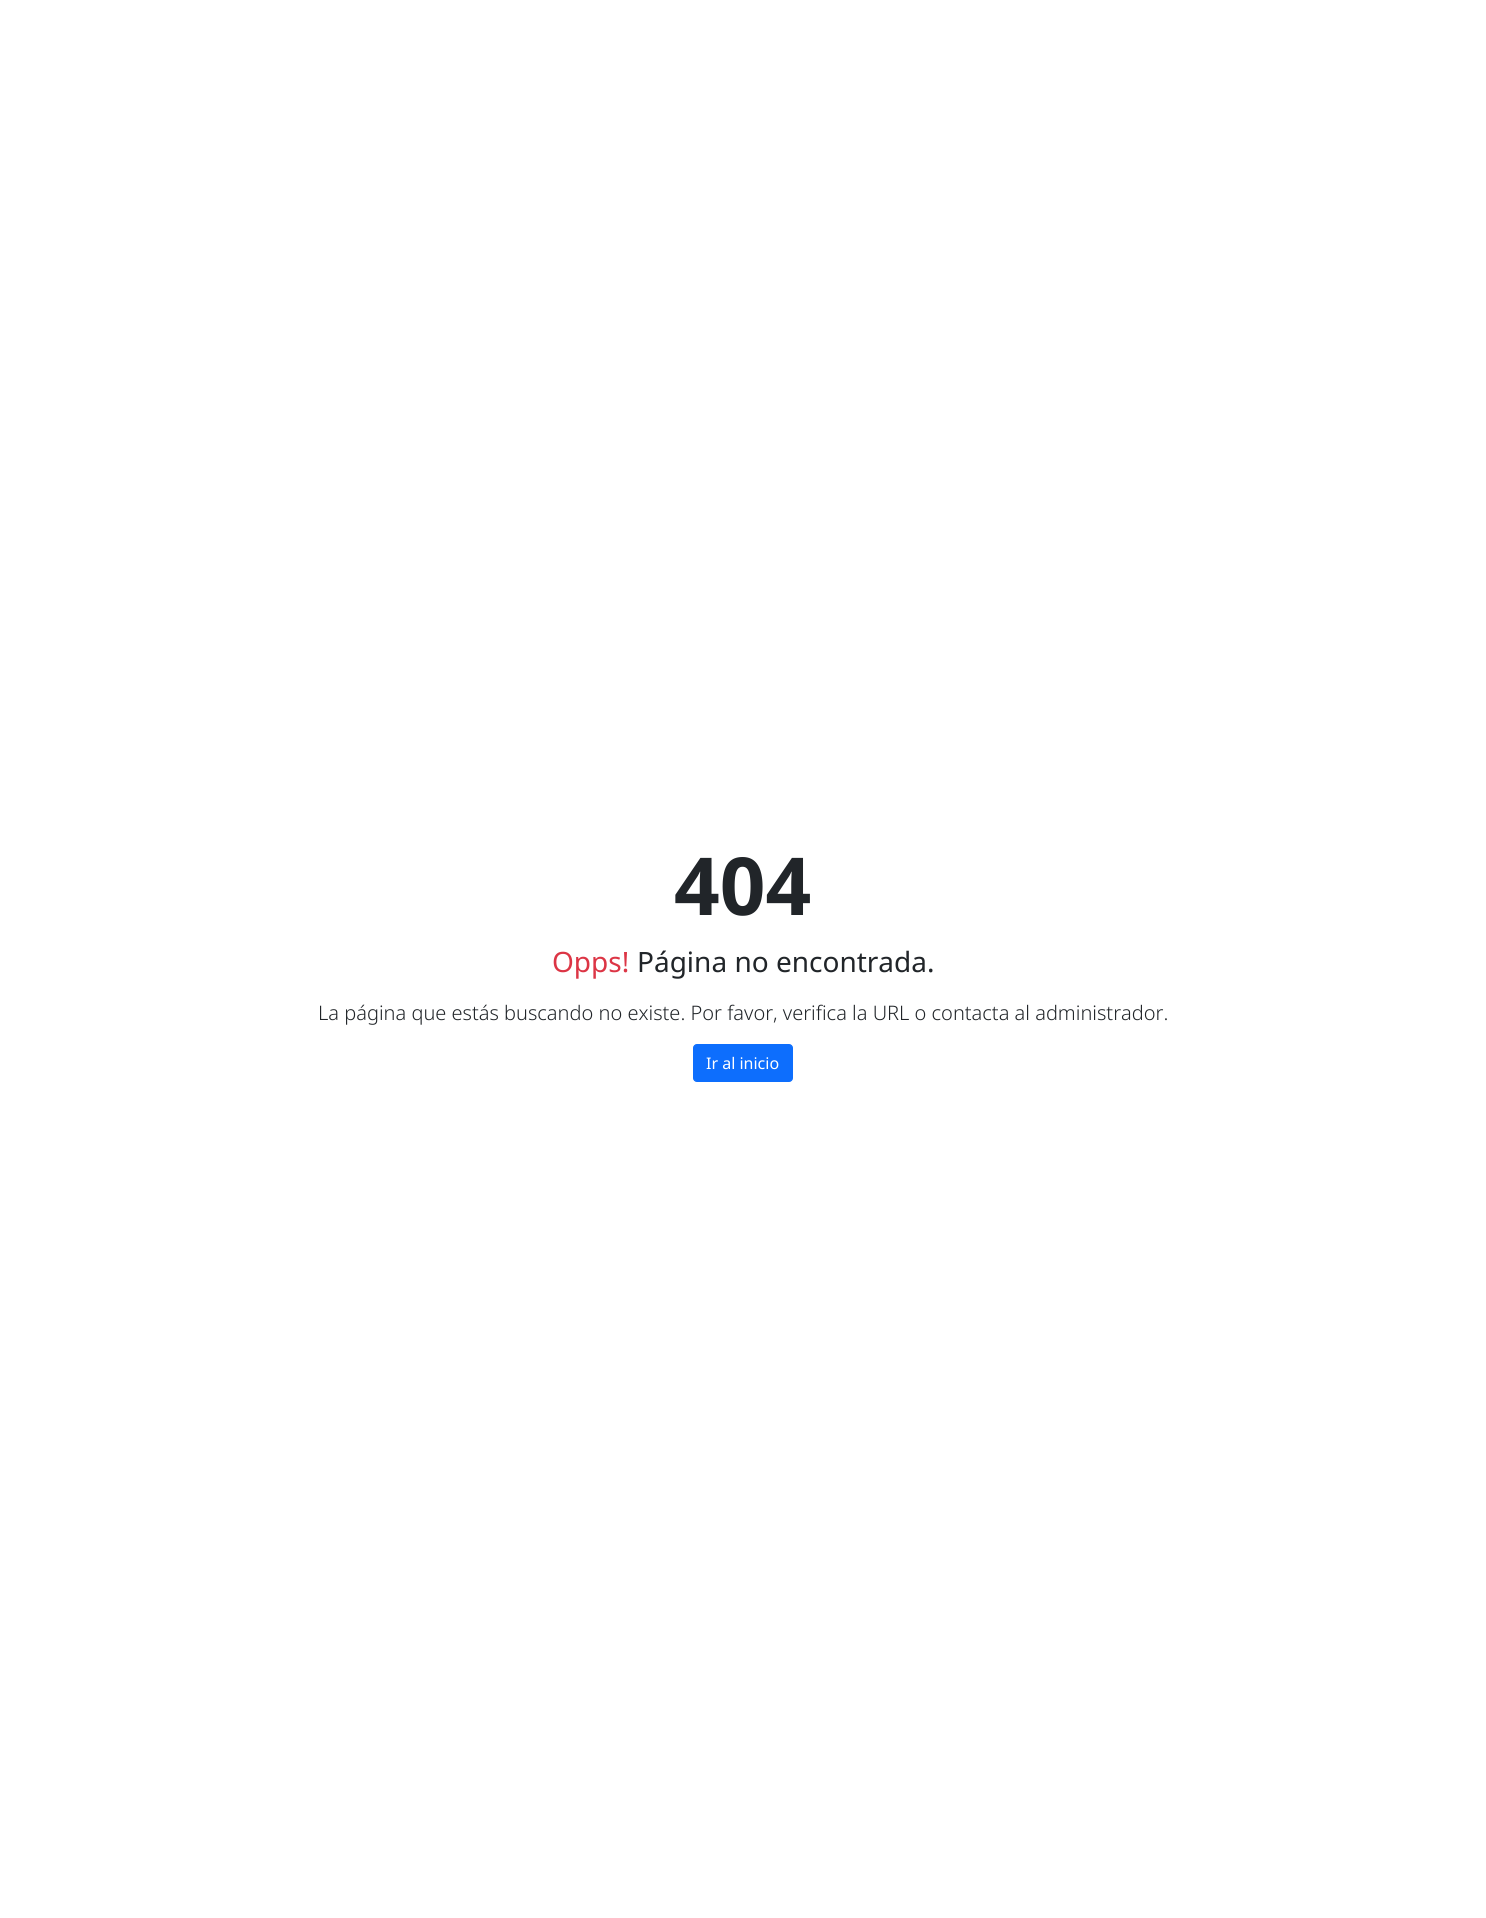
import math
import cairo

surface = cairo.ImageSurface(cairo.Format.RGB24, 1486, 1918)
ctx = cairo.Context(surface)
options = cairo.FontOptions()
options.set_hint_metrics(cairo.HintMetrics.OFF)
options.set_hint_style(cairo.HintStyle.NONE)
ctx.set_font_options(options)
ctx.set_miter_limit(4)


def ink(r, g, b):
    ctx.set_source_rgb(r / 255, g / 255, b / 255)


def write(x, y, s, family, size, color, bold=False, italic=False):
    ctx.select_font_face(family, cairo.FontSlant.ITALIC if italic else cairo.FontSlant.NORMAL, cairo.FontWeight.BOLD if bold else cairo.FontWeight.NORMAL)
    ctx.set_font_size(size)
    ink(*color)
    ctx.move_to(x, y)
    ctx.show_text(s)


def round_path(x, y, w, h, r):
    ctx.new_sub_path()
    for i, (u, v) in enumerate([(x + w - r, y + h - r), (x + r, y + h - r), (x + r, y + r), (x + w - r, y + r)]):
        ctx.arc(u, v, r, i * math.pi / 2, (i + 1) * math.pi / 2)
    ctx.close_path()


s1 = dict(family="Noto Sans", size=80, color=(33, 37, 41), bold=True)
s2 = dict(family="Noto Sans", size=28, color=(220, 53, 69))
s3 = dict(family="Noto Sans", size=28, color=(33, 37, 41))
s4 = dict(family="Noto Sans Light", size=20, color=(33, 37, 41))
s5 = dict(family="Noto Sans", size=16, color=(255, 255, 255))

ink(255, 255, 255)
ctx.paint()
write(674, 915, "404", **s1)
write(552, 972, "Opps!", **s2)
write(637, 972, "Página no encontrada.", **s3)
write(318, 1020, "La página que estás buscando no existe. Por favor, verifica la URL o contacta al administrador.", **s4)
ink(13, 110, 253)
round_path(693.5, 1044.5, 99, 37, 3.5)
ctx.fill_preserve()
ctx.set_line_width(1)
ctx.stroke()
write(706, 1069, "Ir al inicio", **s5)
surface.write_to_png("screenshot.png")
